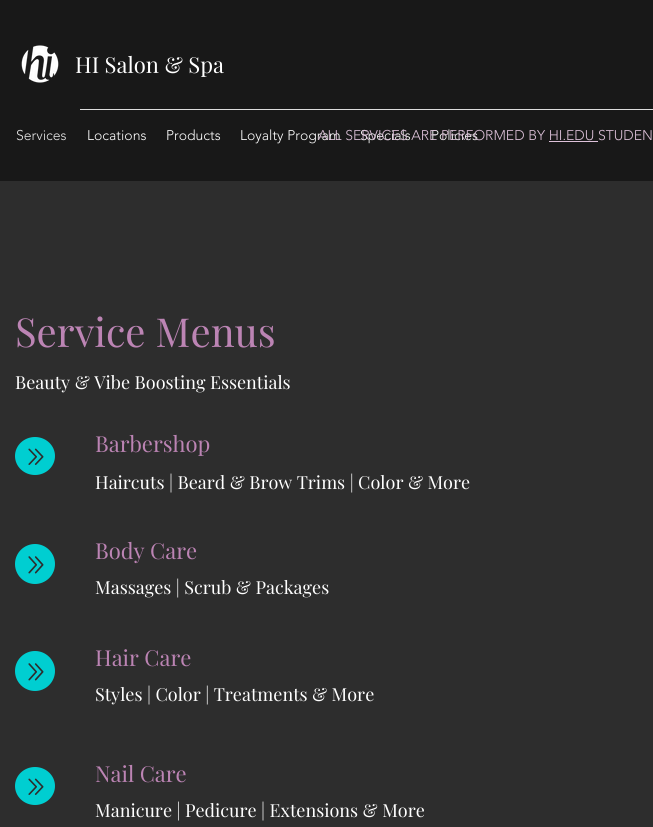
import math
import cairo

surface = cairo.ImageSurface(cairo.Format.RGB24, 653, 827)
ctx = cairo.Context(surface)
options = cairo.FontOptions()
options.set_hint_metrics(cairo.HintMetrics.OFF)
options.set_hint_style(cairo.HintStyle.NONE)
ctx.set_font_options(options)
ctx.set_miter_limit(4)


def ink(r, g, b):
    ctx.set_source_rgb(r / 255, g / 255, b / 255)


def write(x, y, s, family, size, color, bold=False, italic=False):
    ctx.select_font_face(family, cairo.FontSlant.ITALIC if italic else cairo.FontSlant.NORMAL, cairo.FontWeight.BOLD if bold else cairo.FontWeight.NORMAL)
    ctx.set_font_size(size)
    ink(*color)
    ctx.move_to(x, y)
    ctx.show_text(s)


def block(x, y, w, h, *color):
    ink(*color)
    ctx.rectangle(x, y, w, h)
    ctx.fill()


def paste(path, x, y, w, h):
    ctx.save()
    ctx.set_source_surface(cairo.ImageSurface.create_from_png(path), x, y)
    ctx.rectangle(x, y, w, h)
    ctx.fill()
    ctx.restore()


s1 = dict(family="Playfair Display", size=22, color=(255, 255, 255))
s2 = dict(family="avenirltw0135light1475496 Light", size=14, color=(231, 231, 231))
s3 = dict(family="avenirltw0135light1475496 Light", size=14, color=(255, 255, 255))
s4 = dict(family="avenirltw0135light1475496 Light", size=14, color=(222, 194, 218))
s5 = dict(family="Playfair Display", size=40, color=(188, 132, 180))
s6 = dict(family="Playfair Display", size=18, color=(255, 255, 255))
s7 = dict(family="Playfair Display", size=22, color=(188, 132, 180))

ink(45, 45, 45)
ctx.paint()
block(0, 0, 653, 181, 24, 24, 24)
paste("pic1.png", 21, 45, 38, 38)
write(75, 73, "HI Salon & Spa", **s1)
block(80, 109, 573, 1, 220, 220, 220)
write(16, 140, "Services", **s2)
write(87, 140, "Locations", **s3)
write(166, 140, "Products", **s3)
write(240, 140, "Loyalty Program", **s3)
write(360, 140, "Specials", **s3)
write(431, 140, "Policies", **s3)
write(318, 140, "ALL SERVICES ARE PERFORMED BY HI.EDU STUDEN", **s4)
block(549, 141, 49, 1, 222, 194, 218)
write(15, 347, "Service Menus", **s5)
write(15, 389, "Beauty & Vibe Boosting Essentials", **s6)
paste("pic2.png", 15, 437, 40, 38)
write(95, 452, "Barbershop", **s7)
write(95, 489, "Haircuts | Beard & Brow Trims | Color & More", **s6)
paste("pic3.png", 15, 544, 40, 40)
write(95, 559, "Body Care", **s7)
write(95, 594, "Massages | Scrub & Packages", **s6)
paste("pic3.png", 15, 651, 40, 40)
write(95, 666, "Hair Care", **s7)
write(95, 701, "Styles | Color | Treatments & More", **s6)
paste("pic2.png", 15, 767, 40, 38)
write(95, 782, "Nail Care", **s7)
write(95, 817, "Manicure | Pedicure | Extensions & More", **s6)
surface.write_to_png("screenshot.png")
